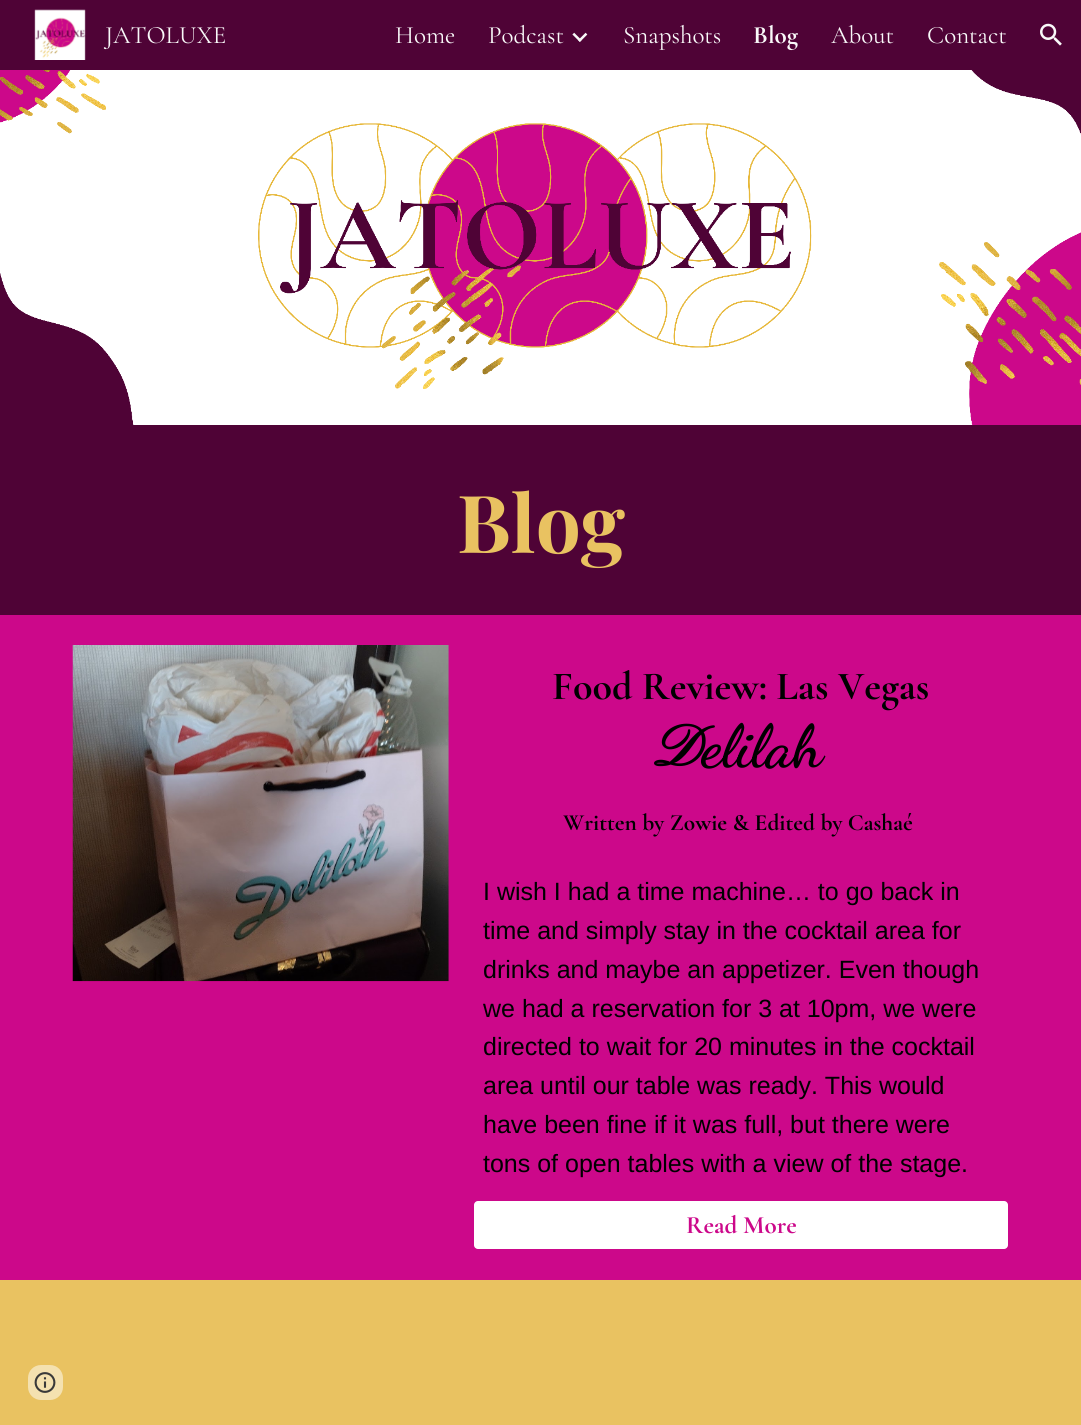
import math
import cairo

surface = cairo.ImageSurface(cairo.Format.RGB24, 1081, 1425)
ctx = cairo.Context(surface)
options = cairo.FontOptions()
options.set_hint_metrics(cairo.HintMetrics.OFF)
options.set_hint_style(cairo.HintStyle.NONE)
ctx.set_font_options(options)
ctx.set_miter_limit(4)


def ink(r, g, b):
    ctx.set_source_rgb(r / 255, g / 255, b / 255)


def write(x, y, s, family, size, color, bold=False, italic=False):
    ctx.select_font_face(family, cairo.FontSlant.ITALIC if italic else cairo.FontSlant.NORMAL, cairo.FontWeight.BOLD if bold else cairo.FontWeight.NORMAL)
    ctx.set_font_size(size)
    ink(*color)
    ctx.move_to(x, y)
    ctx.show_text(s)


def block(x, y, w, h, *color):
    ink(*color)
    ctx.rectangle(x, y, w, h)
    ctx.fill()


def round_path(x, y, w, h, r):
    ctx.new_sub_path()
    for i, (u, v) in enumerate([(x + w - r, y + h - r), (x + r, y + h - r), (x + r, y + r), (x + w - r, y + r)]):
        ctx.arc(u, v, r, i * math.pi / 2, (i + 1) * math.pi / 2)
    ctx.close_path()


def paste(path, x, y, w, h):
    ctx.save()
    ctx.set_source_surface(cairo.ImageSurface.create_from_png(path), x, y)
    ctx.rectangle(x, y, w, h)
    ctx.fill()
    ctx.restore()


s1 = dict(family="Cormorant Garamond", size=25, color=(249, 249, 249))
s2 = dict(family="Cormorant Garamond", size=25, color=(249, 249, 249), bold=True)
s3 = dict(family="Playfair Display", size=80, color=(233, 194, 97), bold=True)
s4 = dict(family="Cormorant Garamond", size=40, color=(0, 0, 0), bold=True)
s5 = dict(family="Pinyon Script", size=60, color=(0, 0, 0), bold=True)
s6 = dict(family="Dancing Script", size=60, color=(0, 0, 0), bold=True)
s7 = dict(family="Cormorant Garamond", size=23.3, color=(0, 0, 0), bold=True)
s8 = dict(family="Liberation Sans", size=25, color=(0, 0, 0))
s9 = dict(family="Cormorant Garamond", size=25, color=(204, 8, 138), bold=True)

ink(233, 194, 97)
ctx.paint()
block(0, 0, 1081, 70, 79, 3, 54)
paste("pic1.png", 34, 9, 52, 51)
write(105, 43, "JATOLUXE", **s1)
write(395, 43, "Home", **s1)
write(488, 43, "Podcast", **s1)
paste("pic2.png", 572, 32, 16, 10)
write(623, 43, "Snapshots", **s1)
write(753, 43, "Blog", **s2)
write(831, 43, "About", **s1)
write(927, 43, "Contact", **s1)
paste("pic3.png", 1040, 23, 22, 23)
paste("pic4.png", 0, 70, 1081, 355)
block(0, 425, 1081, 190, 79, 3, 54)
write(457, 553, "Blog", **s3)
block(0, 615, 1081, 665, 204, 8, 138)
paste("pic5.png", 72, 645, 377, 337)
write(552, 699, "Food Review: Las Vegas", **s4)
write(654, 766, "D", **s5)
write(702, 766, "elilah", **s6)
write(563, 830, "Written by Zowie & Edited by Cashaé", **s7)
write(483, 900, "I wish I had a time machine… to go back in", **s8)
write(483, 939, "time and simply stay in the cocktail area for", **s8)
write(483, 978, "drinks and maybe an appetizer. Even though", **s8)
write(483, 1017, "we had a reservation for 3 at 10pm, we were", **s8)
write(483, 1055, "directed to wait for 20 minutes in the cocktail", **s8)
write(483, 1094, "area until our table was ready. This would", **s8)
write(483, 1133, "have been fine if it was full, but there were", **s8)
write(483, 1172, "tons of open tables with a view of the stage.", **s8)
ink(255, 255, 255)
round_path(474, 1201, 534, 48, 4)
ctx.fill()
write(686, 1233, "Read More", **s9)
ink(244, 225, 176)
round_path(28, 1365, 35, 35, 13)
ctx.fill()
paste("pic6.png", 34, 1372, 22, 21)
surface.write_to_png("screenshot.png")
